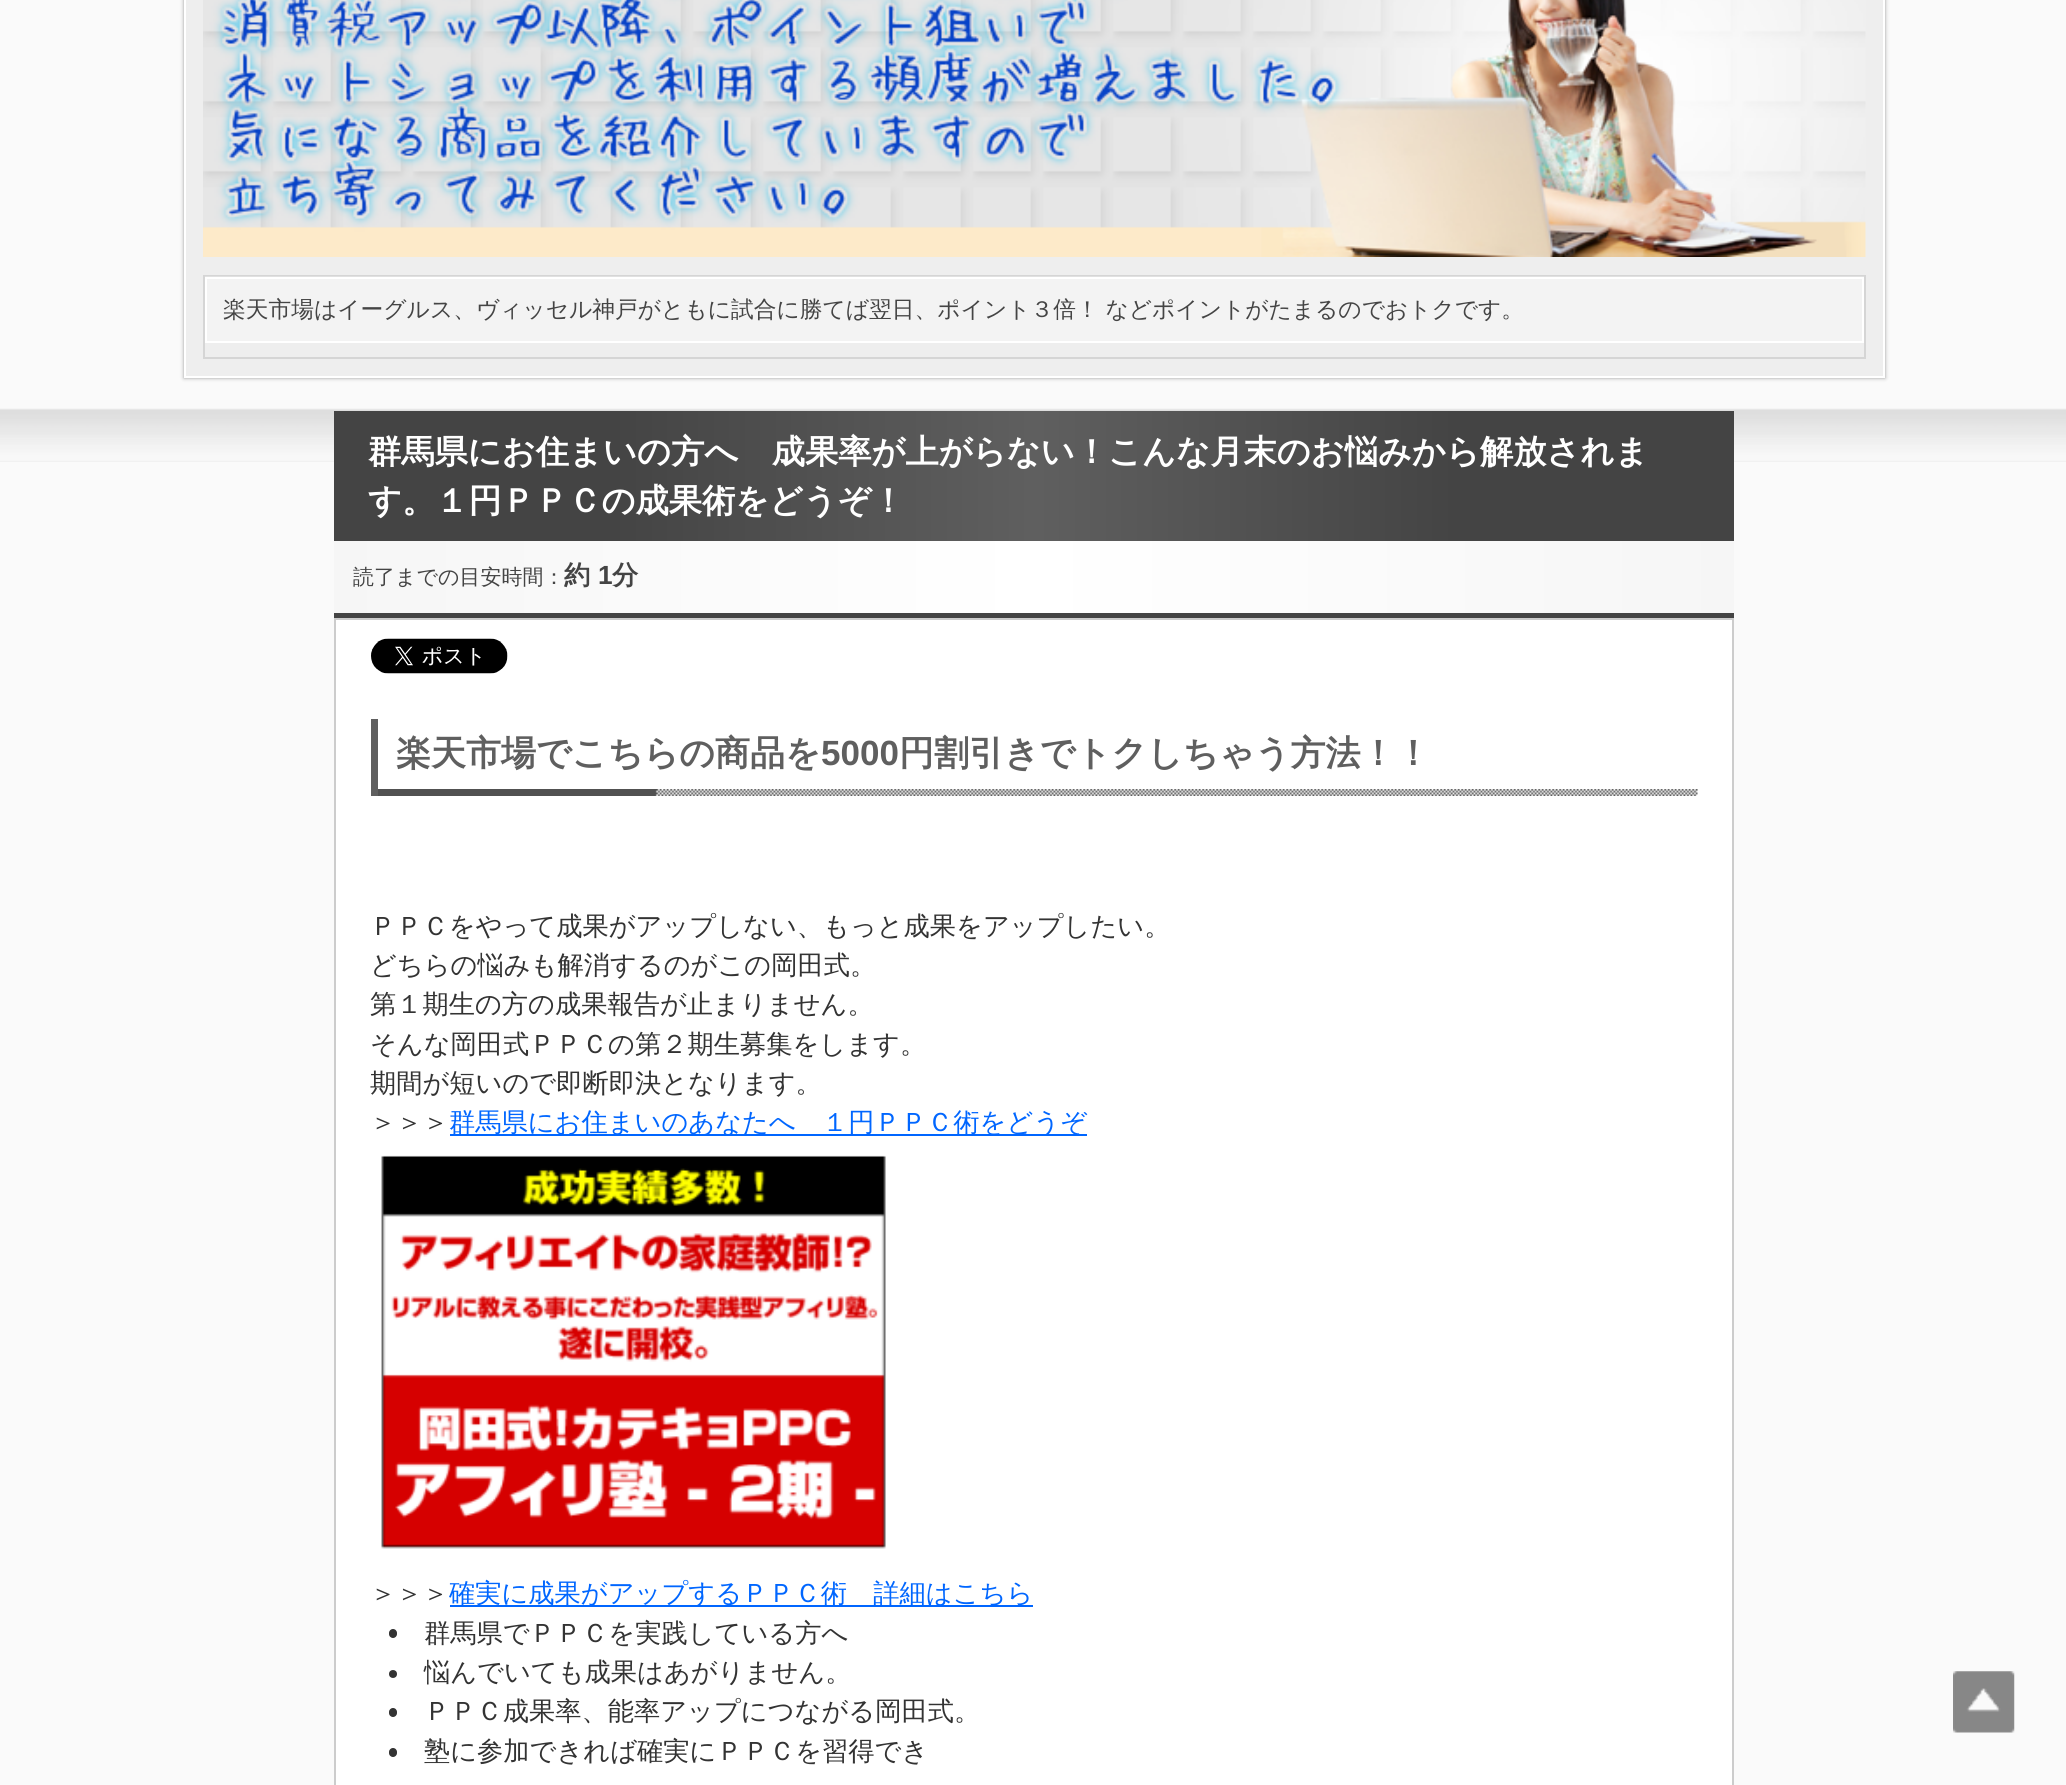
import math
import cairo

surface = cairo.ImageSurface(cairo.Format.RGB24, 2066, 1785)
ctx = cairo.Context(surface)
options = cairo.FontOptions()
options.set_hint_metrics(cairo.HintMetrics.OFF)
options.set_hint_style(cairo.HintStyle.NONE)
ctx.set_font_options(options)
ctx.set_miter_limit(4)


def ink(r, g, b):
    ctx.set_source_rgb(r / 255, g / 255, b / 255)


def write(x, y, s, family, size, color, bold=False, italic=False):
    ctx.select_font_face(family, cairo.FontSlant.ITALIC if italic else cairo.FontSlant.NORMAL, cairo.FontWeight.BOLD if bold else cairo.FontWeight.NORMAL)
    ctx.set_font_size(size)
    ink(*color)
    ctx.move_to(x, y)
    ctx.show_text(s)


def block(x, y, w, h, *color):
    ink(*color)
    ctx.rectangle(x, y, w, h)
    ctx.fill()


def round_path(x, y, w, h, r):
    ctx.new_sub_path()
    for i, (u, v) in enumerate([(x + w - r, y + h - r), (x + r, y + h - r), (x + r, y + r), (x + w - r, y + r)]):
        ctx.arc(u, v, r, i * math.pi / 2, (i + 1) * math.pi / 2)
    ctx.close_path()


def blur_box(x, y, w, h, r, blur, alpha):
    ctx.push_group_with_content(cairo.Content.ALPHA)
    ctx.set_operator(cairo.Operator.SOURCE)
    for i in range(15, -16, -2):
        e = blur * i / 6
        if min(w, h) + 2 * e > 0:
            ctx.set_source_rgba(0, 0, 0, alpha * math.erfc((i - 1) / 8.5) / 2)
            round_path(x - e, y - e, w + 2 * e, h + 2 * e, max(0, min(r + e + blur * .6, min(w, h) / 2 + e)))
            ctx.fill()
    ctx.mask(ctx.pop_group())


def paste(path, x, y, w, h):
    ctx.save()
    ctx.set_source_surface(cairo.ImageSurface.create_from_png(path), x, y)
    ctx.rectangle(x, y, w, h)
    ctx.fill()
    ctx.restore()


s1 = dict(family="WenQuanYi Zen Hei Medium", size=22.75, color=(68, 68, 68))
s2 = dict(family="WenQuanYi Zen Hei", size=33.25, color=(255, 255, 255), bold=True)
s3 = dict(family="WenQuanYi Zen Hei Medium", size=21, color=(68, 68, 68))
s4 = dict(family="WenQuanYi Zen Hei", size=26.25, color=(68, 68, 68), bold=True)
s5 = dict(family="Liberation Sans", size=26.25, color=(68, 68, 68), bold=True)
s6 = dict(family="WenQuanYi Zen Hei", size=35, color=(95, 95, 95), bold=True)
s7 = dict(family="Liberation Sans", size=35, color=(95, 95, 95), bold=True)
s8 = dict(family="WenQuanYi Zen Hei Medium", size=26.25, color=(51, 51, 51))
s9 = dict(family="WenQuanYi Zen Hei Medium", size=26.25, color=(0, 102, 255))

ink(250, 250, 250)
ctx.paint()
ink(153, 153, 153)
blur_box(184, -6, 1701, 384, 0, 2, 1)
ink(238, 238, 238)
ctx.rectangle(185, -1, 1699, 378)
ctx.fill_preserve()
ink(255, 255, 255)
ctx.stroke()
paste("pic1.png", 203, 0, 1663, 257)
ctx.rectangle(204, 276, 1661, 82)
ink(213, 213, 213)
ctx.stroke()
ctx.set_source_rgba(1, 1, 1, 0.27)
ctx.rectangle(205, 276, 1659, 65)
ctx.fill()
ctx.rectangle(206, 278, 1657, 64)
ink(255, 255, 255)
ctx.stroke()
write(223, 317, "楽天市場はイーグルス、ヴィッセル神戸がともに試合に勝てば翌日、ポイント３倍！ などポイントがたまるのでおトクです。", **s1)
paste("pic2.png", 0, 408, 2066, 54)
gradient = cairo.LinearGradient(334, 476, 1734, 476)
gradient.add_color_stop_rgba(0.2, 0.267, 0.267, 0.267, 1)
gradient.add_color_stop_rgba(0.5, 0.373, 0.373, 0.373, 1)
gradient.add_color_stop_rgba(0.8, 0.267, 0.267, 0.267, 1)
ctx.set_source(gradient)
ctx.rectangle(334, 411, 1400, 130)
ctx.fill()
write(368, 463, "群馬県にお住まいの方へ　成果率が上がらない！こんな月末のお悩みから解放されま", **s2)
write(368, 512, "す。１円ＰＰＣの成果術をどうぞ！", **s2)
gradient = cairo.LinearGradient(334, 577, 1734, 577)
gradient.add_color_stop_rgba(0, 0.965, 0.965, 0.965, 1)
gradient.add_color_stop_rgba(0.5, 1, 1, 1, 1)
gradient.add_color_stop_rgba(1, 0.965, 0.965, 0.965, 1)
ctx.set_source(gradient)
ctx.rectangle(334, 541, 1400, 72)
ctx.fill()
block(334, 613, 1400, 5, 68, 68, 68)
write(353, 584, "読了までの目安時間：", **s3)
write(564, 584, "約", **s4)
write(598, 584, "1", **s5)
write(612, 584, "分", **s4)
ink(255, 255, 255)
ctx.rectangle(335, 619, 1398, 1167)
ctx.fill_preserve()
ink(204, 204, 204)
ctx.stroke()
paste("pic3.png", 371, 638, 137, 36)
paste("pic4.png", 378, 789, 1320, 7)
block(371, 719, 7, 77, 95, 95, 95)
write(396, 765, "楽天市場でこちらの商品を", **s6)
write(821, 765, "5000", **s7)
write(899, 765, "円割引きでトクしちゃう方法！！", **s6)
write(370, 935, "ＰＰＣをやって成果がアップしない、もっと成果をアップしたい。", **s8)
write(370, 974, "どちらの悩みも解消するのがこの岡田式。", **s8)
write(370, 1013, "第１期生の方の成果報告が止まりません。", **s8)
write(370, 1053, "そんな岡田式ＰＰＣの第２期生募集をします。", **s8)
write(370, 1092, "期間が短いので即断即決となります。", **s8)
write(370, 1131, "＞＞＞", **s8)
block(450, 1134, 637, 2, 0, 102, 255)
write(449, 1131, "群馬県にお住まいのあなたへ　１円ＰＰＣ術をどうぞ", **s9)
paste("pic5.png", 381, 1155, 505, 394)
write(370, 1602, "＞＞＞", **s8)
block(450, 1605, 583, 2, 0, 102, 255)
write(449, 1602, "確実に成果がアップするＰＰＣ術　詳細はこちら", **s9)
ink(51, 51, 51)
round_path(389, 1629, 8, 9, 4)
ctx.fill()
write(424, 1642, "群馬県でＰＰＣを実践している方へ", **s8)
ctx.new_path()
ctx.arc(393, 1674, 4, 0, 2 * math.pi)
ctx.fill()
write(424, 1681, "悩んでいても成果はあがりません。", **s8)
round_path(389, 1708, 8, 9, 4)
ctx.fill()
write(424, 1720, "ＰＰＣ成果率、能率アップにつながる岡田式。", **s8)
round_path(389, 1748, 8, 9, 4)
ctx.fill()
write(424, 1760, "塾に参加できれば確実にＰＰＣを習得でき", **s8)
paste("pic6.png", 1953, 1671, 62, 62)
surface.write_to_png("screenshot.png")
